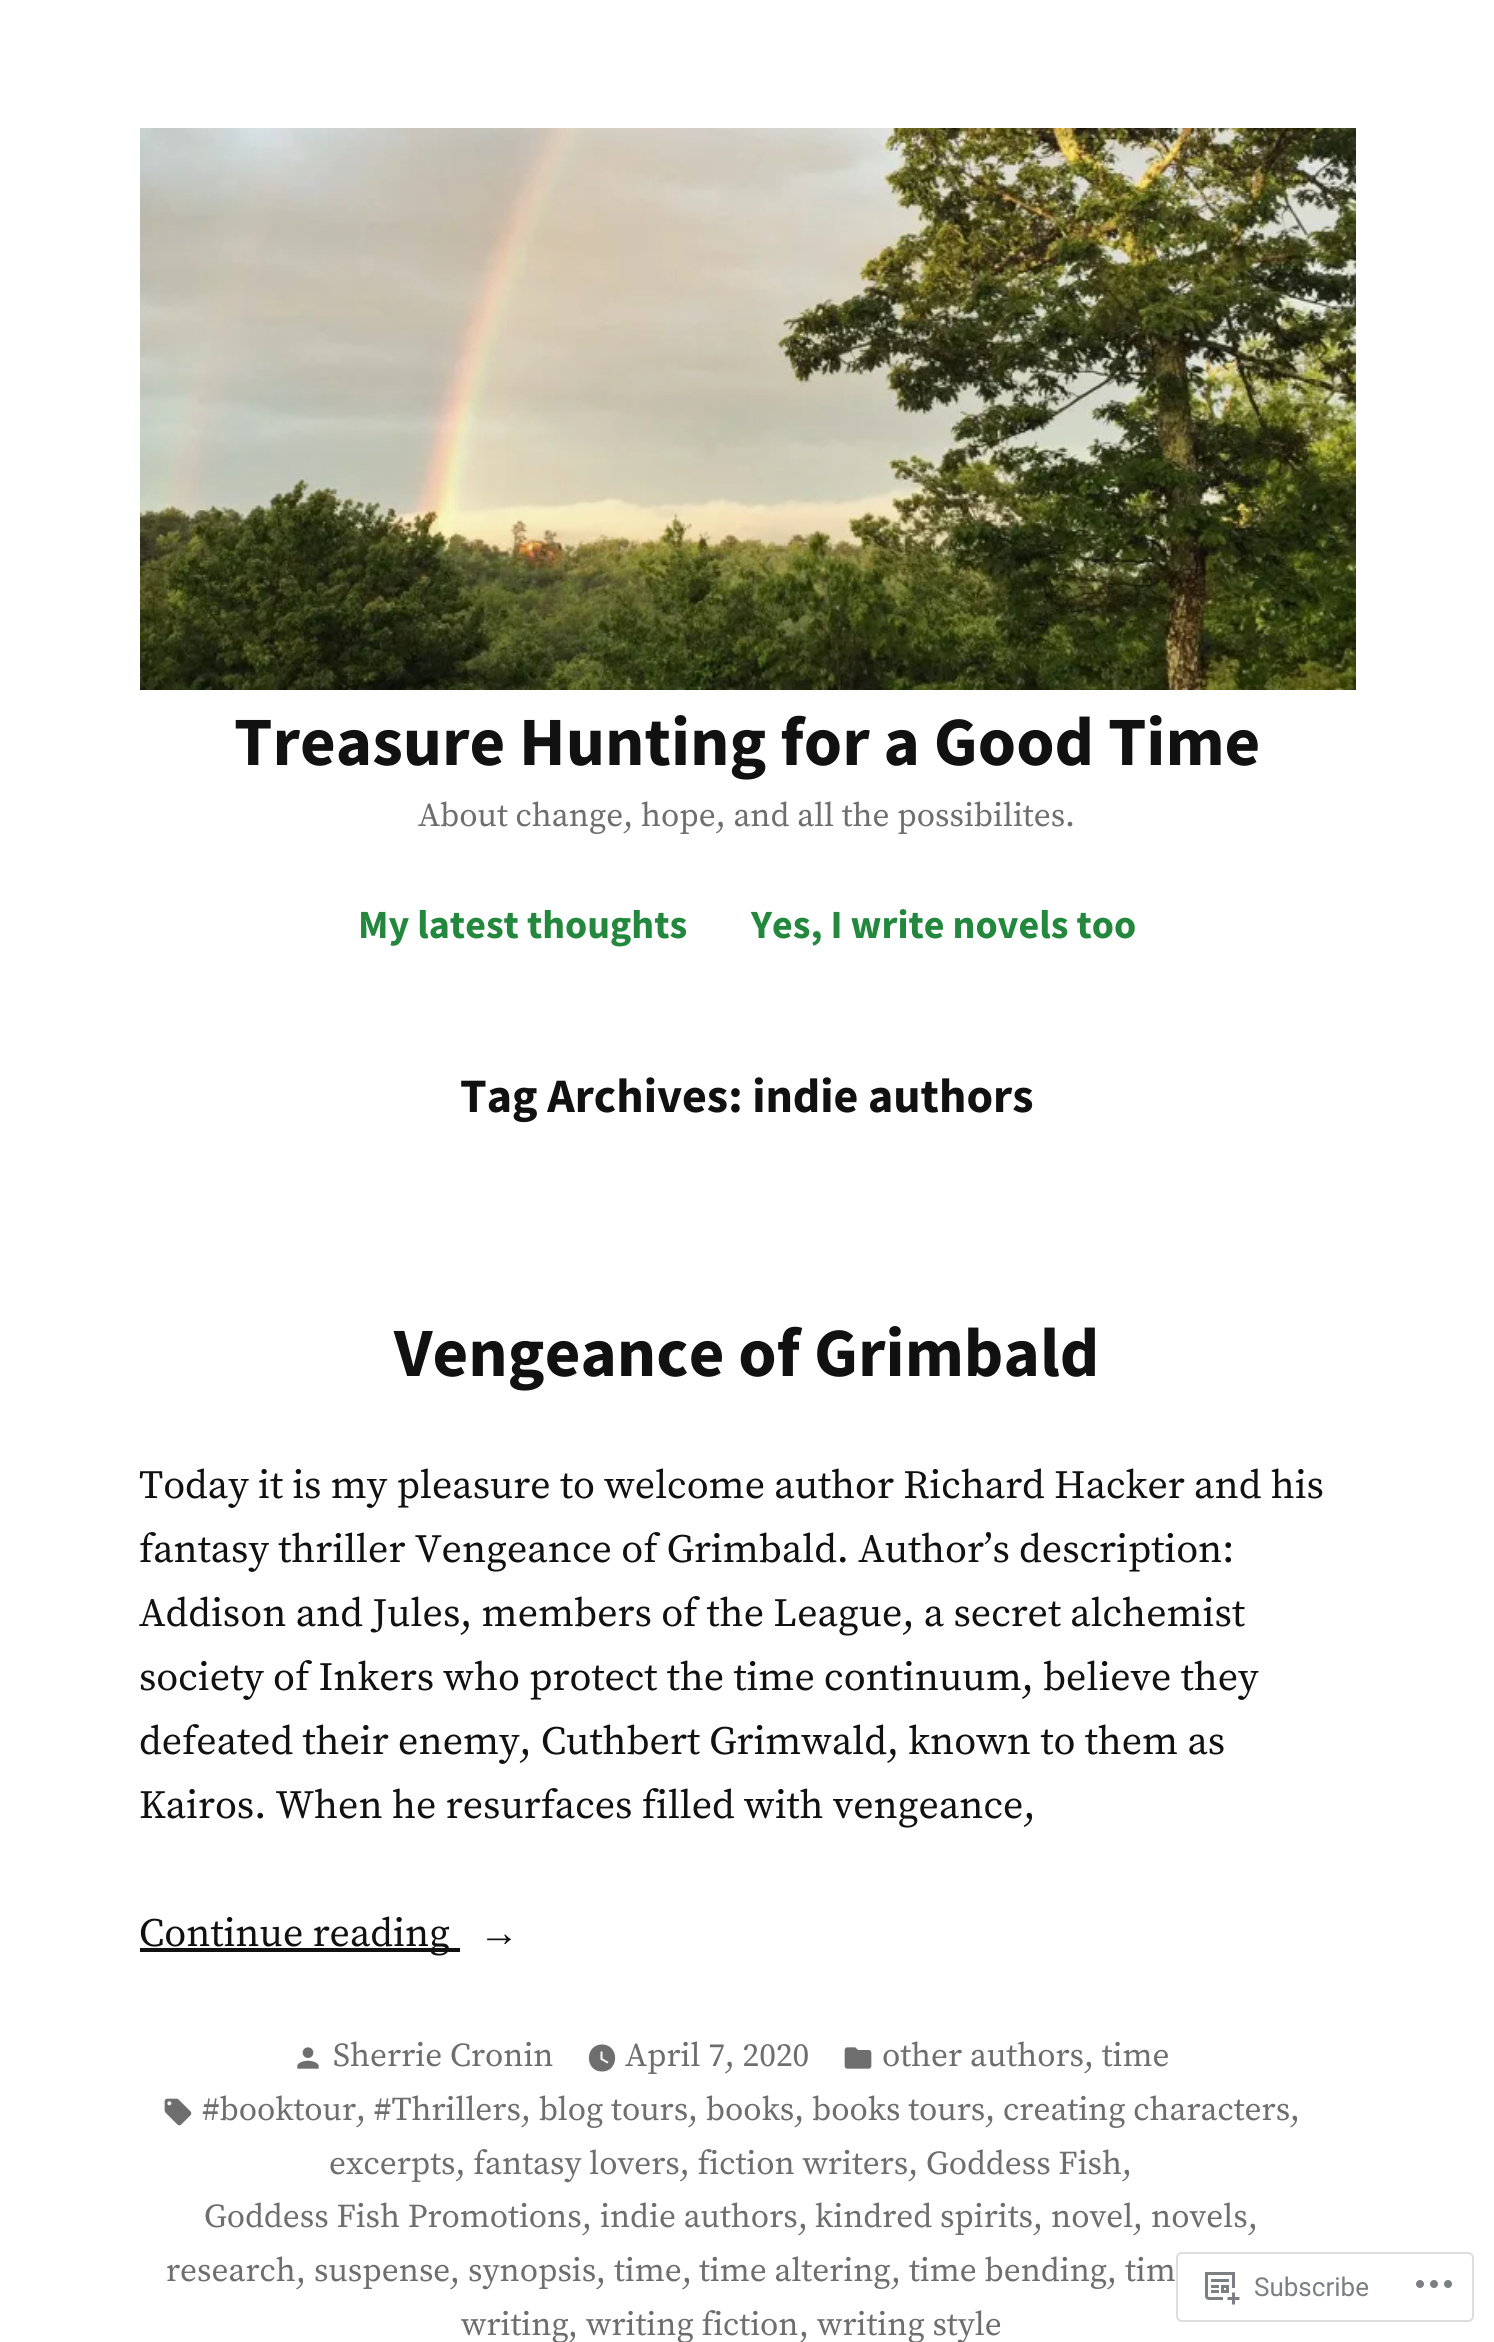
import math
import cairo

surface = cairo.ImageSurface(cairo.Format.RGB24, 1494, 2342)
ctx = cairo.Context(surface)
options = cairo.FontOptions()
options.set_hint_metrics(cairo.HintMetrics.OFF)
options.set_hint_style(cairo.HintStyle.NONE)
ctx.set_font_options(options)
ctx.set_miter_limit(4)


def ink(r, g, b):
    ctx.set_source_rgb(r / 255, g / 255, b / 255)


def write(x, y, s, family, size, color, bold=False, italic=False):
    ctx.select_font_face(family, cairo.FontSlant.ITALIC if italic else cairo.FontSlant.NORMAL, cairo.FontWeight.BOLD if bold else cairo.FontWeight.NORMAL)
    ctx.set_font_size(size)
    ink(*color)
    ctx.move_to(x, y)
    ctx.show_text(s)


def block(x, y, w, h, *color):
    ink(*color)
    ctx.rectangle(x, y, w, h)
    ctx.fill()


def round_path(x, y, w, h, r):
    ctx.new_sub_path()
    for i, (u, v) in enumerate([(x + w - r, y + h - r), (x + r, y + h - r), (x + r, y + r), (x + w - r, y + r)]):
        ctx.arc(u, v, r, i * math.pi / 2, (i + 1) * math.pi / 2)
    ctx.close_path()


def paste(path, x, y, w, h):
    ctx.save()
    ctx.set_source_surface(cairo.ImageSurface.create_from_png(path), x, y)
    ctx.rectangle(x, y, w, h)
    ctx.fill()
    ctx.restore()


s1 = dict(family="Source Sans Pro", size=69.1, color=(17, 17, 17), bold=True)
s2 = dict(family="Source Serif Pro", size=33.3, color=(110, 110, 110))
s3 = dict(family="Source Sans Pro", size=40, color=(35, 136, 61), bold=True)
s4 = dict(family="Source Sans Pro", size=48, color=(17, 17, 17), bold=True)
s5 = dict(family="Source Serif Pro", size=40, color=(17, 17, 17))
s6 = dict(family="Liberation Serif", size=40, color=(17, 17, 17))
s7 = dict(family="Roboto", size=26, color=(123, 127, 132))

ink(255, 255, 255)
ctx.paint()
paste("pic1.png", 140, 128, 1216, 562)
write(234, 765, "Treasure Hunting for a Good Time", **s1)
write(418, 826, "About change, hope, and all the possibilites.", **s2)
write(358, 938, "My latest thoughts", **s3)
write(751, 938, "Yes, I write novels too", **s3)
write(460, 1112, "Tag Archives: indie authors", **s4)
write(394, 1376, "Vengeance of Grimbald", **s1)
write(139, 1498, "Today it is my pleasure to welcome author Richard Hacker and his", **s5)
write(139, 1562, "fantasy thriller Vengeance of Grimbald. Author’s description:", **s5)
write(139, 1626, "Addison and Jules, members of the League, a secret alchemist", **s5)
write(139, 1690, "society of Inkers who protect the time continuum, believe they", **s5)
write(139, 1754, "defeated their enemy, Cuthbert Grimwald, known to them as", **s5)
write(139, 1818, "Kairos. When he resurfaces filled with vengeance,", **s5)
block(140, 1948, 320, 4, 17, 17, 17)
write(139, 1946, "Continue reading", **s5)
write(479, 1946, "→", **s6)
paste("pic2.png", 297, 2047, 22, 22)
write(333, 2066, "Sherrie Cronin", **s2)
ctx.new_path()
ctx.move_to(602, 2044.5)
ctx.curve_to(584.5, 2044.5, 584.5, 2071.5, 602, 2071.5)
ctx.curve_to(619.5, 2071.5, 619.5, 2044.5, 602, 2044.5)
ctx.close_path()
ctx.move_to(607.5, 2063.5)
ctx.line_to(600.5, 2059.5)
ctx.line_to(600.5, 2051.5)
ctx.line_to(602.5, 2051.5)
ctx.line_to(602.5, 2058.5)
ctx.line_to(608.5, 2062)
ctx.close_path()
ctx.fill()
write(625, 2066, "April 7, 2020", **s2)
paste("pic3.png", 844, 2047, 28, 22)
write(882, 2066, "other authors, time", **s2)
paste("pic4.png", 164, 2098, 28, 28)
write(202, 2120, "#booktour, #Thrillers, blog tours, books, books tours, creating characters,", **s2)
write(329, 2174, "excerpts, fantasy lovers, fiction writers, Goddess Fish,", **s2)
write(204, 2227, "Goddess Fish Promotions", **s2)
write(600, 2227, "indie authors", **s2)
write(815, 2227, "kindred spirits", **s2)
write(1051, 2227, "novel", **s2)
write(1151, 2227, "novels", **s2)
write(582, 2228, ",", **s2)
write(798, 2228, ",", **s2)
write(1033, 2228, ",", **s2)
write(1133, 2228, ",", **s2)
write(1248, 2228, ",", **s2)
write(166, 2281, "research", **s2)
write(296, 2282, ",", **s2)
write(314, 2281, "suspense", **s2)
write(450, 2282, ",", **s2)
write(468, 2281, "synopsis", **s2)
write(596, 2282, ",", **s2)
write(614, 2281, "time", **s2)
write(682, 2282, ",", **s2)
write(699, 2281, "time altering", **s2)
write(891, 2282, ",", **s2)
write(909, 2281, "time bending", **s2)
write(1107, 2282, ",", **s2)
write(1125, 2281, "tim", **s2)
write(461, 2335, "writing", **s2)
write(568, 2336, ",", **s2)
write(586, 2335, "writing fiction", **s2)
write(799, 2336, ",", **s2)
write(817, 2335, "writing style", **s2)
round_path(1177, 2253, 296, 68, 5)
ink(221, 221, 223)
ctx.stroke()
paste("pic5.png", 1205, 2272, 35, 33)
write(1254, 2296, "Subscribe", **s7)
paste("pic6.png", 1416, 2280, 36, 8)
surface.write_to_png("screenshot.png")
